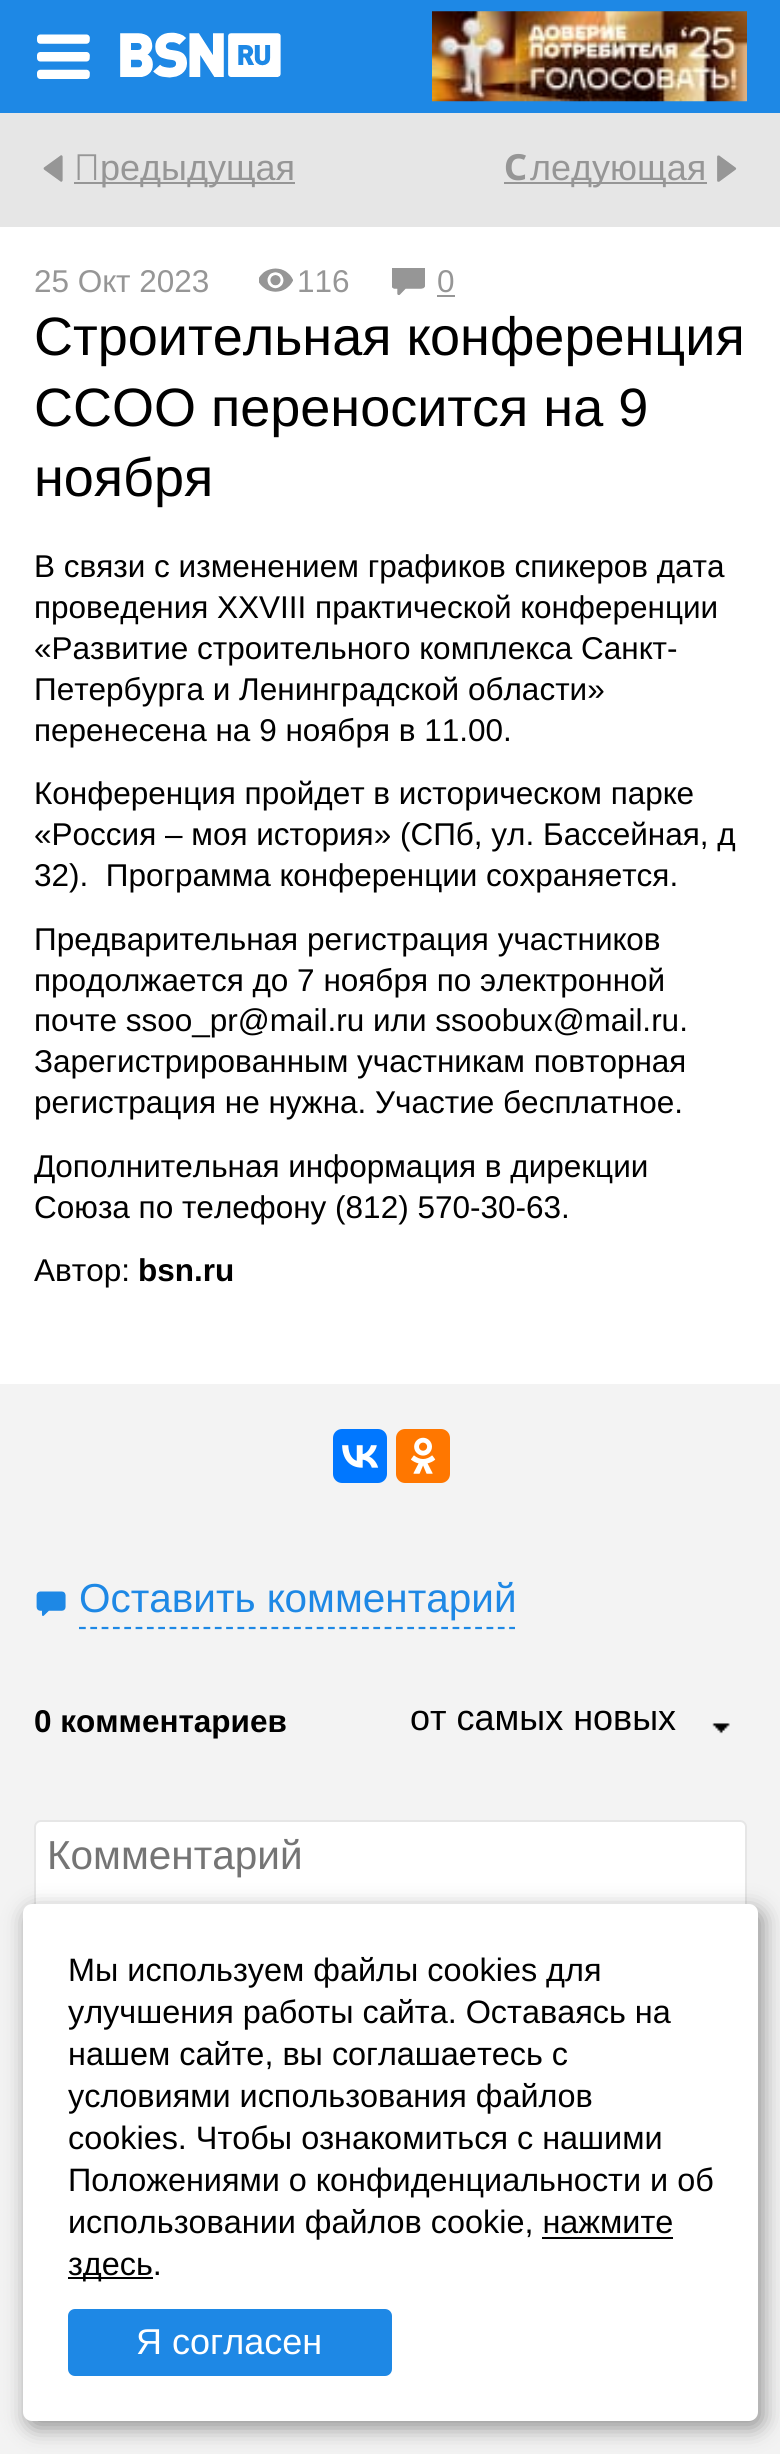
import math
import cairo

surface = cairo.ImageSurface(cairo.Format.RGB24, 780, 2454)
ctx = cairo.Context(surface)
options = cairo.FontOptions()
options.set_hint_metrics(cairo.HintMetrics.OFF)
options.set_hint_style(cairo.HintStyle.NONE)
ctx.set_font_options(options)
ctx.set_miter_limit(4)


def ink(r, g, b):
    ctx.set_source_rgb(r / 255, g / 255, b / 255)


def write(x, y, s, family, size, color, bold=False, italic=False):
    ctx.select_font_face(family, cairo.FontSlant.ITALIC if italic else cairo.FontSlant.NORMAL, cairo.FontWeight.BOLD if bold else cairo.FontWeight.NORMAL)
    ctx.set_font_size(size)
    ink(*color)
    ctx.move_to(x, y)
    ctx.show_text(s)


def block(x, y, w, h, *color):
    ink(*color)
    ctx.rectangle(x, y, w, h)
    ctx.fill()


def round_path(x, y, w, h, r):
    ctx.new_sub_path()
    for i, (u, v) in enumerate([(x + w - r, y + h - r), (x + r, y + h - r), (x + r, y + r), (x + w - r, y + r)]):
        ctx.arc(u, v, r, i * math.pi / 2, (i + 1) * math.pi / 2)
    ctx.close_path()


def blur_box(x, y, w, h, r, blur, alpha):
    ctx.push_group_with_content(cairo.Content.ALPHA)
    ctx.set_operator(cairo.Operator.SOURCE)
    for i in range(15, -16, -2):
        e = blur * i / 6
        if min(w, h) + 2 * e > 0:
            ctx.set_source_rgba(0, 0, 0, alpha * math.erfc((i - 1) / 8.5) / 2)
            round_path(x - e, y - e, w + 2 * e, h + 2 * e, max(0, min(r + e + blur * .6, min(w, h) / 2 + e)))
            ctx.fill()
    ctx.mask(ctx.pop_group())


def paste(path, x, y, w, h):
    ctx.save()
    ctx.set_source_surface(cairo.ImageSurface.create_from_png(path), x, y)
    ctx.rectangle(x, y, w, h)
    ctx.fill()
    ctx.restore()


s1 = dict(family="Noto Sans Light", size=36, color=(150, 150, 150))
s2 = dict(family="Liberation Sans", size=36, color=(150, 150, 150))
s3 = dict(family="Noto Sans", size=36, color=(150, 150, 150), bold=True)
s4 = dict(family="Liberation Sans", size=31.5, color=(150, 150, 150))
s5 = dict(family="Liberation Sans", size=54, color=(0, 0, 0))
s6 = dict(family="Liberation Sans", size=31.5, color=(0, 0, 0))
s7 = dict(family="Liberation Sans", size=31.5, color=(0, 0, 0), bold=True)
s8 = dict(family="Liberation Sans", size=40.5, color=(30, 136, 229))
s9 = dict(family="Liberation Sans", size=36, color=(0, 0, 0))
s10 = dict(family="Liberation Sans", size=40.5, color=(117, 117, 117))
s11 = dict(family="Liberation Sans", size=32.4, color=(0, 0, 0))
s12 = dict(family="Liberation Sans", size=36, color=(255, 255, 255))

ink(243, 243, 243)
ctx.paint()
block(0, 0, 780, 113, 30, 136, 229)
paste("pic1.png", 37, 34, 53, 45)
paste("pic2.png", 120, 32, 161, 46)
paste("pic3.png", 432, 11, 315, 91)
block(0, 113, 780, 114, 230, 230, 230)
paste("pic4.png", 43, 155, 20, 27)
write(74, 180, "П", **s1)
block(74, 182, 221, 2, 150, 150, 150)
write(100, 180, "редыдущая", **s2)
write(504, 180, "С", **s3)
block(504, 182, 203, 2, 150, 150, 150)
write(530, 180, "ледующая", **s2)
paste("pic5.png", 717, 155, 20, 27)
block(0, 227, 780, 1157, 255, 255, 255)
write(34, 292, "25 Окт 2023", **s4)
paste("pic6.png", 259, 268, 34, 24)
write(297, 292, "116", **s4)
paste("pic7.png", 392, 268, 33, 27)
write(437, 292, "0", **s4)
block(437, 295, 18, 2, 150, 150, 150)
write(34, 355, "Строительная конференция", **s5)
write(34, 426, "ССОО переносится на 9", **s5)
write(34, 496, "ноября", **s5)
write(34, 577, "В связи с изменением графиков спикеров дата", **s6)
write(34, 618, "проведения XXVIII практической конференции", **s6)
write(34, 659, "«Развитие строительного комплекса Санкт-", **s6)
write(34, 700, "Петербурга и Ленинградской области»", **s6)
write(34, 741, "перенесена на 9 ноября в 11.00.", **s6)
write(34, 804, "Конференция пройдет в историческом парке", **s6)
write(34, 845, "«Россия – моя история» (СПб, ул. Бассейная, д", **s6)
write(34, 886, "32).  Программа конференции сохраняется.", **s6)
write(34, 950, "Предварительная регистрация участников", **s6)
write(34, 991, "продолжается до 7 ноября по электронной", **s6)
write(34, 1031, "почте ssoo_pr@mail.ru или ssoobux@mail.ru.", **s6)
write(34, 1072, "Зарегистрированным участникам повторная", **s6)
write(34, 1113, "регистрация не нужна. Участие бесплатное.", **s6)
write(34, 1177, "Дополнительная информация в дирекции", **s6)
write(34, 1218, "Союза по телефону (812) 570-30-63.", **s6)
write(34, 1281, "Автор:", **s6)
write(138, 1281, "bsn.ru", **s7)
ink(0, 119, 255)
round_path(333, 1429, 54, 54, 9)
ctx.fill()
paste("pic8.png", 342, 1445, 37, 23)
ink(255, 119, 0)
round_path(396, 1429, 54, 54, 9)
ctx.fill()
paste("pic9.png", 411, 1437, 25, 37)
ctx.new_path()
ctx.move_to(79, 1628)
ctx.line_to(515, 1628)
ink(30, 136, 229)
ctx.set_line_width(2.2)
ctx.set_dash([6.75, 4.57])
ctx.stroke()
paste("pic10.png", 36, 1591, 30, 25)
write(79, 1612, "Оставить комментарий", **s8)
write(34, 1732, "0 комментариев", **s7)
write(410, 1730, "от самых новых", **s9)
paste("pic11.png", 712, 1723, 18, 11)
ink(255, 255, 255)
round_path(35, 1821, 711, 174, 6)
ctx.fill_preserve()
ink(230, 230, 230)
ctx.set_line_width(2)
ctx.set_dash([])
ctx.stroke()
write(47, 1869, "Комментарий", **s10)
ink(0, 0, 0)
blur_box(27, 1910, 736, 518, 9, 11, 0.4)
ink(255, 255, 255)
round_path(23, 1904, 735, 517, 9)
ctx.fill()
write(68, 1981, "Мы используем файлы cookies для", **s11)
write(68, 2023, "улучшения работы сайта. Оставаясь на", **s11)
write(68, 2065, "нашем сайте, вы соглашаетесь с", **s11)
write(68, 2107, "условиями использования файлов", **s11)
write(68, 2149, "cookies. Чтобы ознакомиться с нашими", **s11)
write(68, 2191, "Положениями о конфиденциальности и об", **s11)
write(68, 2233, "использовании файлов cookie, нажмите", **s11)
block(68, 2277, 85, 2, 0, 0, 0)
write(68, 2275, "здесь.", **s11)
block(542, 2237, 131, 2, 0, 0, 0)
ink(30, 136, 229)
round_path(68, 2309, 324, 67, 7)
ctx.fill()
write(136, 2354, "Я согласен", **s12)
surface.write_to_png("screenshot.png")
